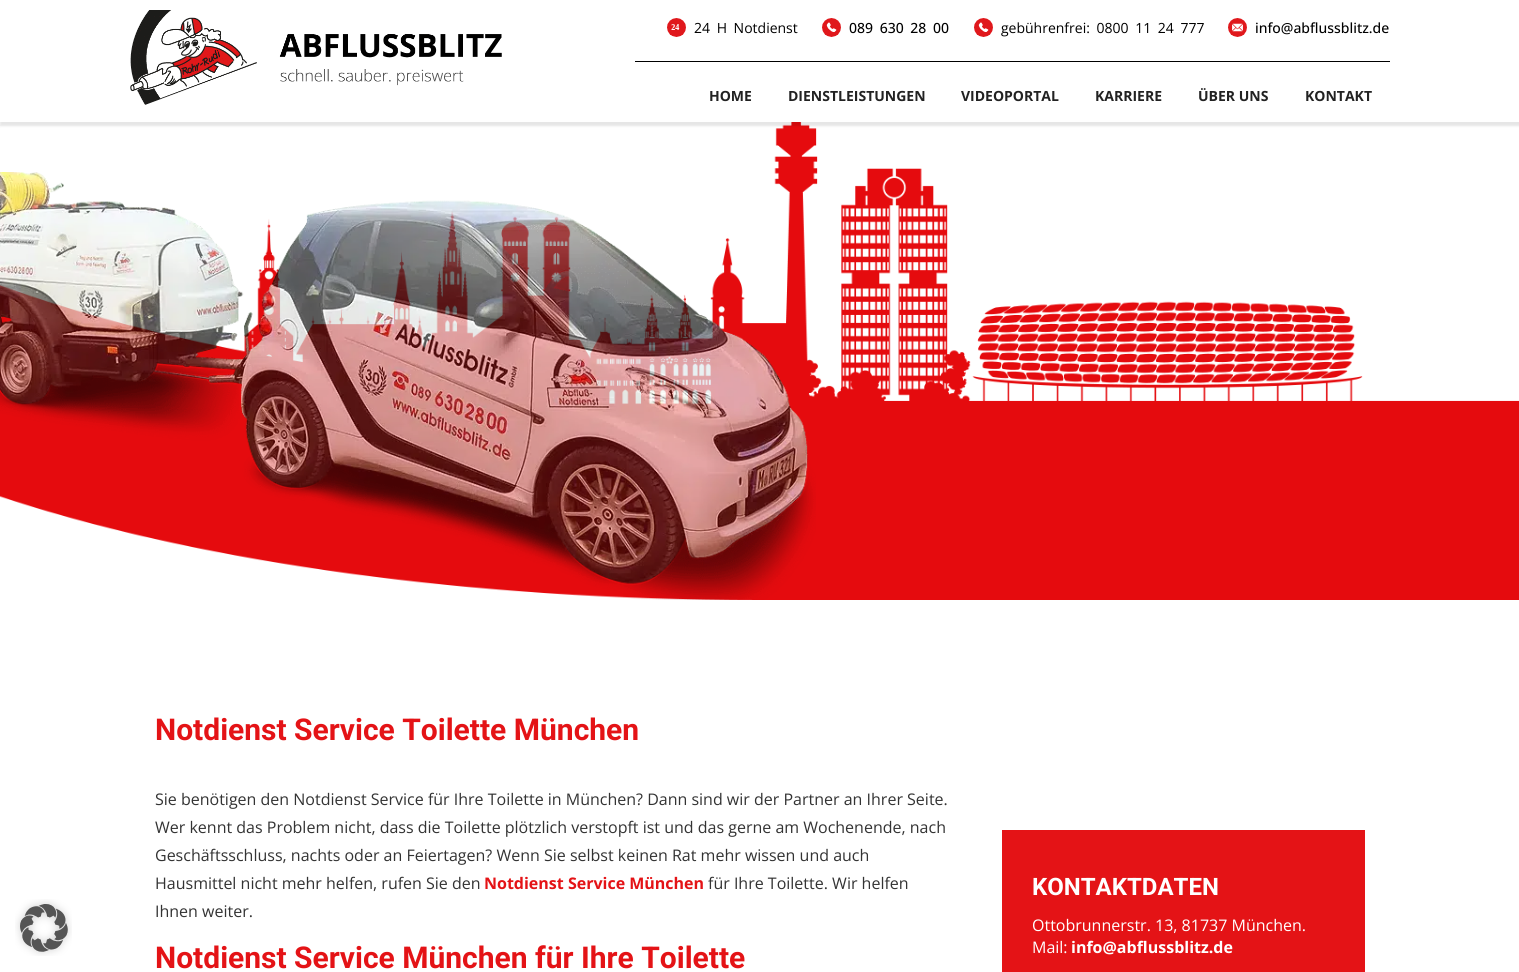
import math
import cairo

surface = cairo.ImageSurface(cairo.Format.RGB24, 1519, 972)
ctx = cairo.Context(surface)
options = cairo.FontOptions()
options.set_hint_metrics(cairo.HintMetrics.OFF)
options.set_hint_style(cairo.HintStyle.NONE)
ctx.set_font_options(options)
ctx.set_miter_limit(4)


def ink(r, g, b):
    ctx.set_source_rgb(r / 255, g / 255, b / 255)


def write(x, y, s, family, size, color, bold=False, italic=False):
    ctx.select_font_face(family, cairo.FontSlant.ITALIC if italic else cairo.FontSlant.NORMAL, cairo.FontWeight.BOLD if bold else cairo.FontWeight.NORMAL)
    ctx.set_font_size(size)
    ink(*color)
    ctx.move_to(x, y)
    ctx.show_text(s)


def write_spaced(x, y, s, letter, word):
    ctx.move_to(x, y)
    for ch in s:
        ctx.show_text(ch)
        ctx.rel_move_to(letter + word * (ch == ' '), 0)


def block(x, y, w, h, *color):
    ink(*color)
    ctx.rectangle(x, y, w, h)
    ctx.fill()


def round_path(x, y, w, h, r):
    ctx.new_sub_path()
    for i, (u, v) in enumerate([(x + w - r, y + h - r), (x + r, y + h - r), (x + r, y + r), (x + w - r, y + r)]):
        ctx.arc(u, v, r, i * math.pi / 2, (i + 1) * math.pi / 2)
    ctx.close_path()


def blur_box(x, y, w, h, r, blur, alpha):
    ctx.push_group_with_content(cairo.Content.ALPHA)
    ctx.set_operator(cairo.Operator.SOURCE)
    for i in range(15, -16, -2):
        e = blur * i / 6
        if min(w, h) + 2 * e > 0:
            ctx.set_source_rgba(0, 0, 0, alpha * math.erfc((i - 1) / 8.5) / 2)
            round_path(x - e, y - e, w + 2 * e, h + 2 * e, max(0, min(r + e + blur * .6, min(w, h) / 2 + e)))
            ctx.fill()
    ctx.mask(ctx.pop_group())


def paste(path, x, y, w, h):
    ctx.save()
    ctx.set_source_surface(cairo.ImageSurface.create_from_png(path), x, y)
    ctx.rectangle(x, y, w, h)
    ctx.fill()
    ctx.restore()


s1 = dict(family="Open Sans Medium", size=14, color=(0, 0, 0))
s2 = dict(family="Open Sans", size=14, color=(34, 34, 34), bold=True)
s3 = dict(family="Roboto", size=30, color=(228, 19, 22), bold=True)
s4 = dict(family="Open Sans", size=16, color=(51, 51, 51))
s5 = dict(family="Open Sans", size=16, color=(228, 19, 22), bold=True)
s6 = dict(family="Roboto", size=24, color=(255, 255, 255), bold=True)
s7 = dict(family="Open Sans", size=16, color=(255, 255, 255))
s8 = dict(family="Open Sans", size=16, color=(255, 255, 255), bold=True)

ink(255, 255, 255)
ctx.paint()
paste("pic1.png", 15, 899, 57, 57)
paste("pic6.png", 0, 122, 1519, 478)
ink(0, 0, 0)
blur_box(0, 0, 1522, 126, 0, 1, 0.1)
block(0, 0, 1519, 122, 255, 255, 255)
paste("pic2.png", 130, 10, 372, 95)
paste("pic3.png", 667, 18, 19, 19)
ctx.select_font_face("Open Sans")
ctx.set_font_size(14)
ink(0, 0, 0)
write_spaced(694, 33, "24 H Notdienst", 0, 3)
paste("pic4.png", 822, 18, 19, 19)
ctx.select_font_face("Open Sans Medium")
write_spaced(849, 33, "089 630 28 00", 0, 3)
paste("pic4.png", 974, 18, 19, 19)
ctx.select_font_face("Open Sans")
write_spaced(1001, 33, "gebührenfrei: 0800 11 24 777", 0, 3)
paste("pic5.png", 1228, 18, 19, 19)
write(1255, 33, "info@abflussblitz.de", **s1)
block(635, 61, 755, 1, 0, 0, 0)
write(709, 101, "HOME", **s2)
write(788, 101, "DIENSTLEISTUNGEN", **s2)
write(961, 101, "VIDEOPORTAL", **s2)
write(1095, 101, "KARRIERE", **s2)
write(1198, 101, "ÜBER UNS", **s2)
write(1305, 101, "KONTAKT", **s2)
paste("pic7.png", 0, 172, 816, 428)
write(155, 740, "Notdienst Service Toilette München", **s3)
write(155, 805, "Sie benötigen den Notdienst Service für Ihre Toilette in München? Dann sind wir der Partner an Ihrer Seite.", **s4)
write(155, 833, "Wer kennt das Problem nicht, dass die Toilette plötzlich verstopft ist und das gerne am Wochenende, nach", **s4)
write(155, 861, "Geschäftsschluss, nachts oder an Feiertagen? Wenn Sie selbst keinen Rat mehr wissen und auch", **s4)
write(155, 889, "Hausmittel nicht mehr helfen, rufen Sie den", **s4)
write(484, 889, "Notdienst Service München", **s5)
write(708, 889, "für Ihre Toilette. Wir helfen", **s4)
write(155, 917, "Ihnen weiter.", **s4)
write(155, 968, "Notdienst Service München für Ihre Toilette", **s3)
block(1002, 830, 363, 142, 228, 19, 22)
write(1032, 895, "KONTAKTDATEN", **s6)
write(1032, 931, "Ottobrunnerstr. 13, 81737 München.", **s7)
write(1032, 953, "Mail:", **s7)
write(1071, 953, "info@abflussblitz.de", **s8)
surface.write_to_png("screenshot.png")
